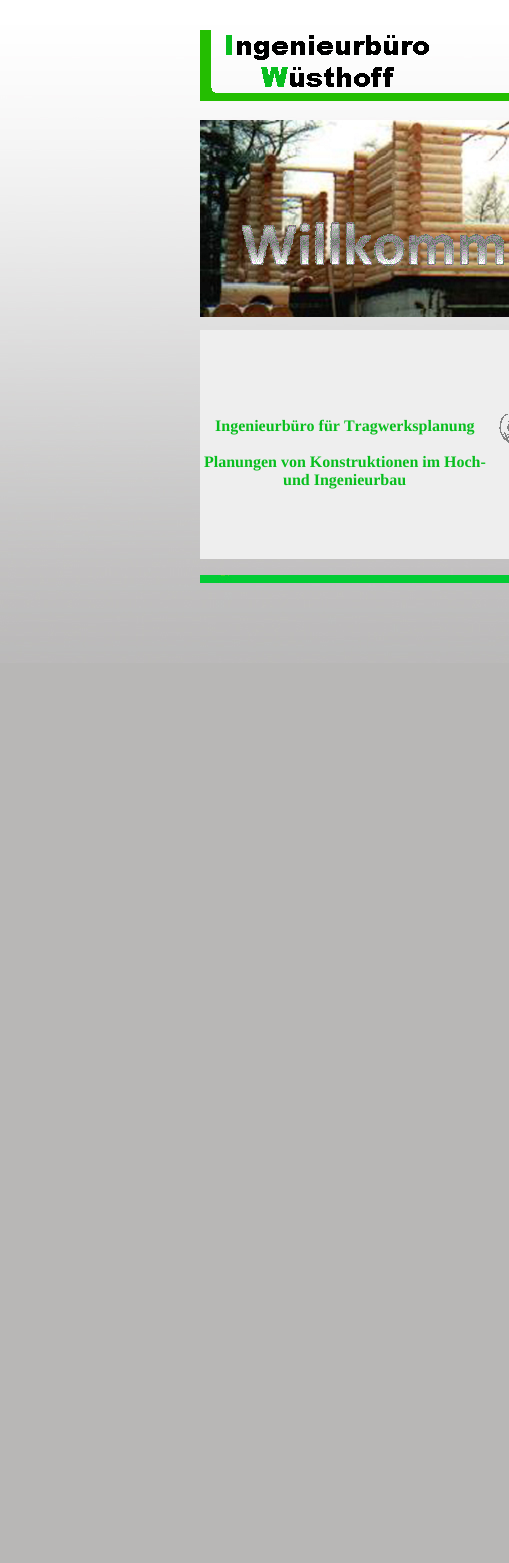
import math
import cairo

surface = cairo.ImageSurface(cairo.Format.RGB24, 509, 1563)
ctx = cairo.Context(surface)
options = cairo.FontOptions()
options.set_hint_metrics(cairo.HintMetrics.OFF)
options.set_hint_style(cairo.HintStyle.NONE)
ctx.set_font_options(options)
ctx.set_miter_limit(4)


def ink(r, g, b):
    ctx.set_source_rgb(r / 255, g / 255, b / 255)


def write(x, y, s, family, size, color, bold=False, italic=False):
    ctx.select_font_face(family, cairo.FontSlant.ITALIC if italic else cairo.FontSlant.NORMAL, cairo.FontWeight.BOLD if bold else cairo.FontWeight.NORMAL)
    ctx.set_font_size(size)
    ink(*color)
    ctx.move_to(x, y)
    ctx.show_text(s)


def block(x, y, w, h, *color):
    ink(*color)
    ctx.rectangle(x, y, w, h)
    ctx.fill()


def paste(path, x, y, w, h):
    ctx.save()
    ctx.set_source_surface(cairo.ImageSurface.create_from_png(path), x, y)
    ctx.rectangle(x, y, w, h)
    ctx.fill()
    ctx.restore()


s1 = dict(family="Liberation Serif", size=16, color=(8, 190, 30), bold=True)

ink(184, 183, 182)
ctx.paint()
paste("pic1.png", 0, 0, 509, 663)
paste("pic2.png", 200, 30, 309, 71)
paste("pic3.png", 200, 120, 309, 197)
paste("pic4.png", 242, 222, 262, 44)
block(200, 330, 309, 229, 238, 238, 238)
write(215, 431, "Ingenieurbüro für Tragwerksplanung", **s1)
write(204, 467, "Planungen von Konstruktionen im Hoch-", **s1)
write(283, 485, "und Ingenieurbau", **s1)
paste("pic5.png", 499, 414, 10, 29)
paste("pic6.png", 200, 575, 309, 8)
surface.write_to_png("screenshot.png")
